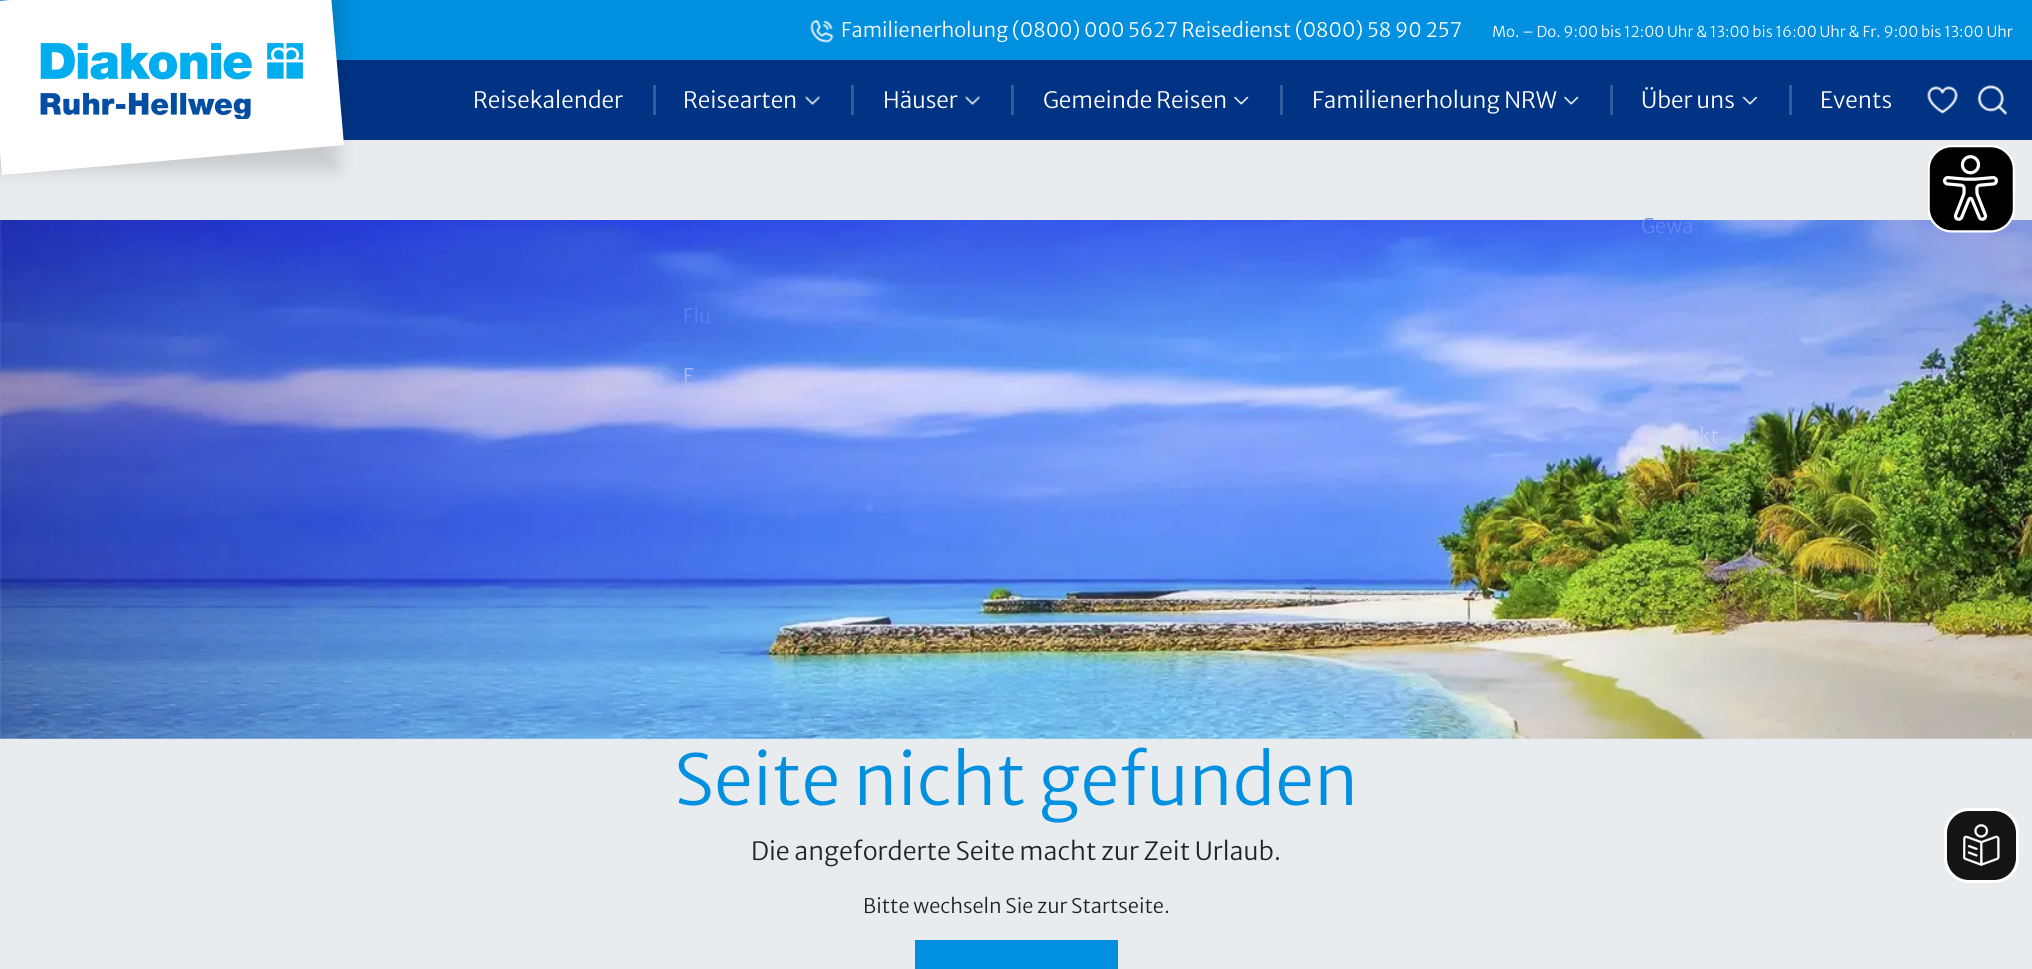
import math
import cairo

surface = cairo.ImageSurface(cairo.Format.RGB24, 2032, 969)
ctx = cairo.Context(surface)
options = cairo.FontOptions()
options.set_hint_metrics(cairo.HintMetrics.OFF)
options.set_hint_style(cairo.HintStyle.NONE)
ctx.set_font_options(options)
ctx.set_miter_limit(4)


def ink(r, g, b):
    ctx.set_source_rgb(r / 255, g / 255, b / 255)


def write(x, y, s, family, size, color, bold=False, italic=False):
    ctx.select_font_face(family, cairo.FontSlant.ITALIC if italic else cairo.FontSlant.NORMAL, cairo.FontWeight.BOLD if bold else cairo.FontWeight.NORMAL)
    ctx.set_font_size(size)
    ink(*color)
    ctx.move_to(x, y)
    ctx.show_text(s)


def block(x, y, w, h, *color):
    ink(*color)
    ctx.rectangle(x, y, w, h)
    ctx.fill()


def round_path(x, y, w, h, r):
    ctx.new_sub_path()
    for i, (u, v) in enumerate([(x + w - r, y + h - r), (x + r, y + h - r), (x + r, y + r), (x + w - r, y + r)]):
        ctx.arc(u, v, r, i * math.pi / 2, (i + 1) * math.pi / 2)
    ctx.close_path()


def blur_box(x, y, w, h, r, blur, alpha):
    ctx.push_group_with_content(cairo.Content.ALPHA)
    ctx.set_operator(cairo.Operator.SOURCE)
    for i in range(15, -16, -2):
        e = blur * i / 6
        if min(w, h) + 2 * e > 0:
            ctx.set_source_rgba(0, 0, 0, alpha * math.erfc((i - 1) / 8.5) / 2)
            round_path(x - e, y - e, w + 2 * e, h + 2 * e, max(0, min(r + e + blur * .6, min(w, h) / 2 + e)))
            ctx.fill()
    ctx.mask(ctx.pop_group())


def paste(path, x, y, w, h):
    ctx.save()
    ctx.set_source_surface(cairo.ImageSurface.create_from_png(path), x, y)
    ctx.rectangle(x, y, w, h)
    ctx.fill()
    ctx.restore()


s1 = dict(family="Merriweather Sans Light", size=20, color=(255, 255, 255))
s2 = dict(family="Merriweather Sans Light", size=15, color=(255, 255, 255))
s3 = dict(family="Merriweather Sans Light", size=22.5, color=(255, 255, 255))
s4 = dict(family="Merriweather Sans Light", size=20, color=(86, 130, 239))
s5 = dict(family="Merriweather Sans Light", size=20, color=(171, 185, 245))
s6 = dict(family="Merriweather Sans Light", size=20, color=(98, 137, 239))
s7 = dict(family="Merriweather Sans Light", size=20, color=(201, 208, 244))
s8 = dict(family="Merriweather Sans Light", size=70, color=(0, 144, 223))
s9 = dict(family="Merriweather Sans Light", size=25, color=(34, 35, 38))
s10 = dict(family="Merriweather Sans Light", size=20, color=(34, 35, 38))

ink(233, 236, 239)
ctx.paint()
block(0, 0, 2032, 60, 0, 144, 223)
block(336, 60, 1696, 80, 0, 51, 131)
ink(0, 0, 0)
blur_box(-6, -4, 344, 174, 0, 10, 0.15)
ink(255, 255, 255)
ctx.new_path()
ctx.move_to(-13, 2)
ctx.line_to(329, -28)
ctx.line_to(344, 145)
ctx.line_to(2, 175)
ctx.close_path()
ctx.fill()
paste("pic1.png", 40, 43, 263, 76)
paste("pic2.png", 810, 19, 24, 24)
write(841, 37, "Familienerholung (0800) 000 5627 Reisedienst (0800) 58 90 257", **s1)
write(1492, 37, "Mo. – Do. 9:00 bis 12:00 Uhr & 13:00 bis 16:00 Uhr & Fr. 9:00 bis 13:00 Uhr", **s2)
write(473, 108, "Reisekalender", **s3)
block(653, 85, 3, 30, 51, 92, 156)
write(683, 108, "Reisearten", **s3)
paste("pic3.png", 805, 96, 15, 9)
paste("pic9.png", 0, 220, 2032, 519)
write(683, 323, "Flu", **s4)
write(683, 383, "F", **s5)
block(851, 85, 3, 30, 51, 92, 156)
write(883, 108, "Häuser", **s3)
paste("pic3.png", 965, 96, 15, 9)
block(1011, 85, 3, 30, 51, 92, 156)
write(1043, 108, "Gemeinde Reisen", **s3)
paste("pic4.png", 1234, 96, 15, 9)
block(1280, 85, 3, 30, 51, 92, 156)
write(1312, 108, "Familienerholung NRW", **s3)
paste("pic4.png", 1564, 96, 15, 9)
block(1610, 85, 3, 30, 51, 92, 156)
write(1641, 108, "Über uns", **s3)
paste("pic5.png", 1742, 96, 16, 9)
write(1641, 233, "Gewa", **s6)
write(1699, 443, "kt", **s7)
block(1789, 85, 3, 30, 51, 92, 156)
write(1820, 108, "Events", **s3)
paste("pic6.png", 1927, 86, 31, 28)
paste("pic7.png", 1977, 85, 31, 30)
paste("pic8.png", 1928, 145, 87, 88)
write(674, 805, "Seite nicht gefunden", **s8)
write(751, 860, "Die angeforderte Seite macht zur Zeit Urlaub.", **s9)
write(863, 913, "Bitte wechseln Sie zur Startseite.", **s10)
block(915, 940, 203, 29, 0, 144, 223)
ink(21, 20, 20)
round_path(1945.5, 809.5, 72, 72, 23.5)
ctx.fill_preserve()
ink(255, 255, 255)
ctx.set_line_width(3)
ctx.stroke()
paste("pic10.png", 1963, 824, 37, 42)
surface.write_to_png("screenshot.png")
